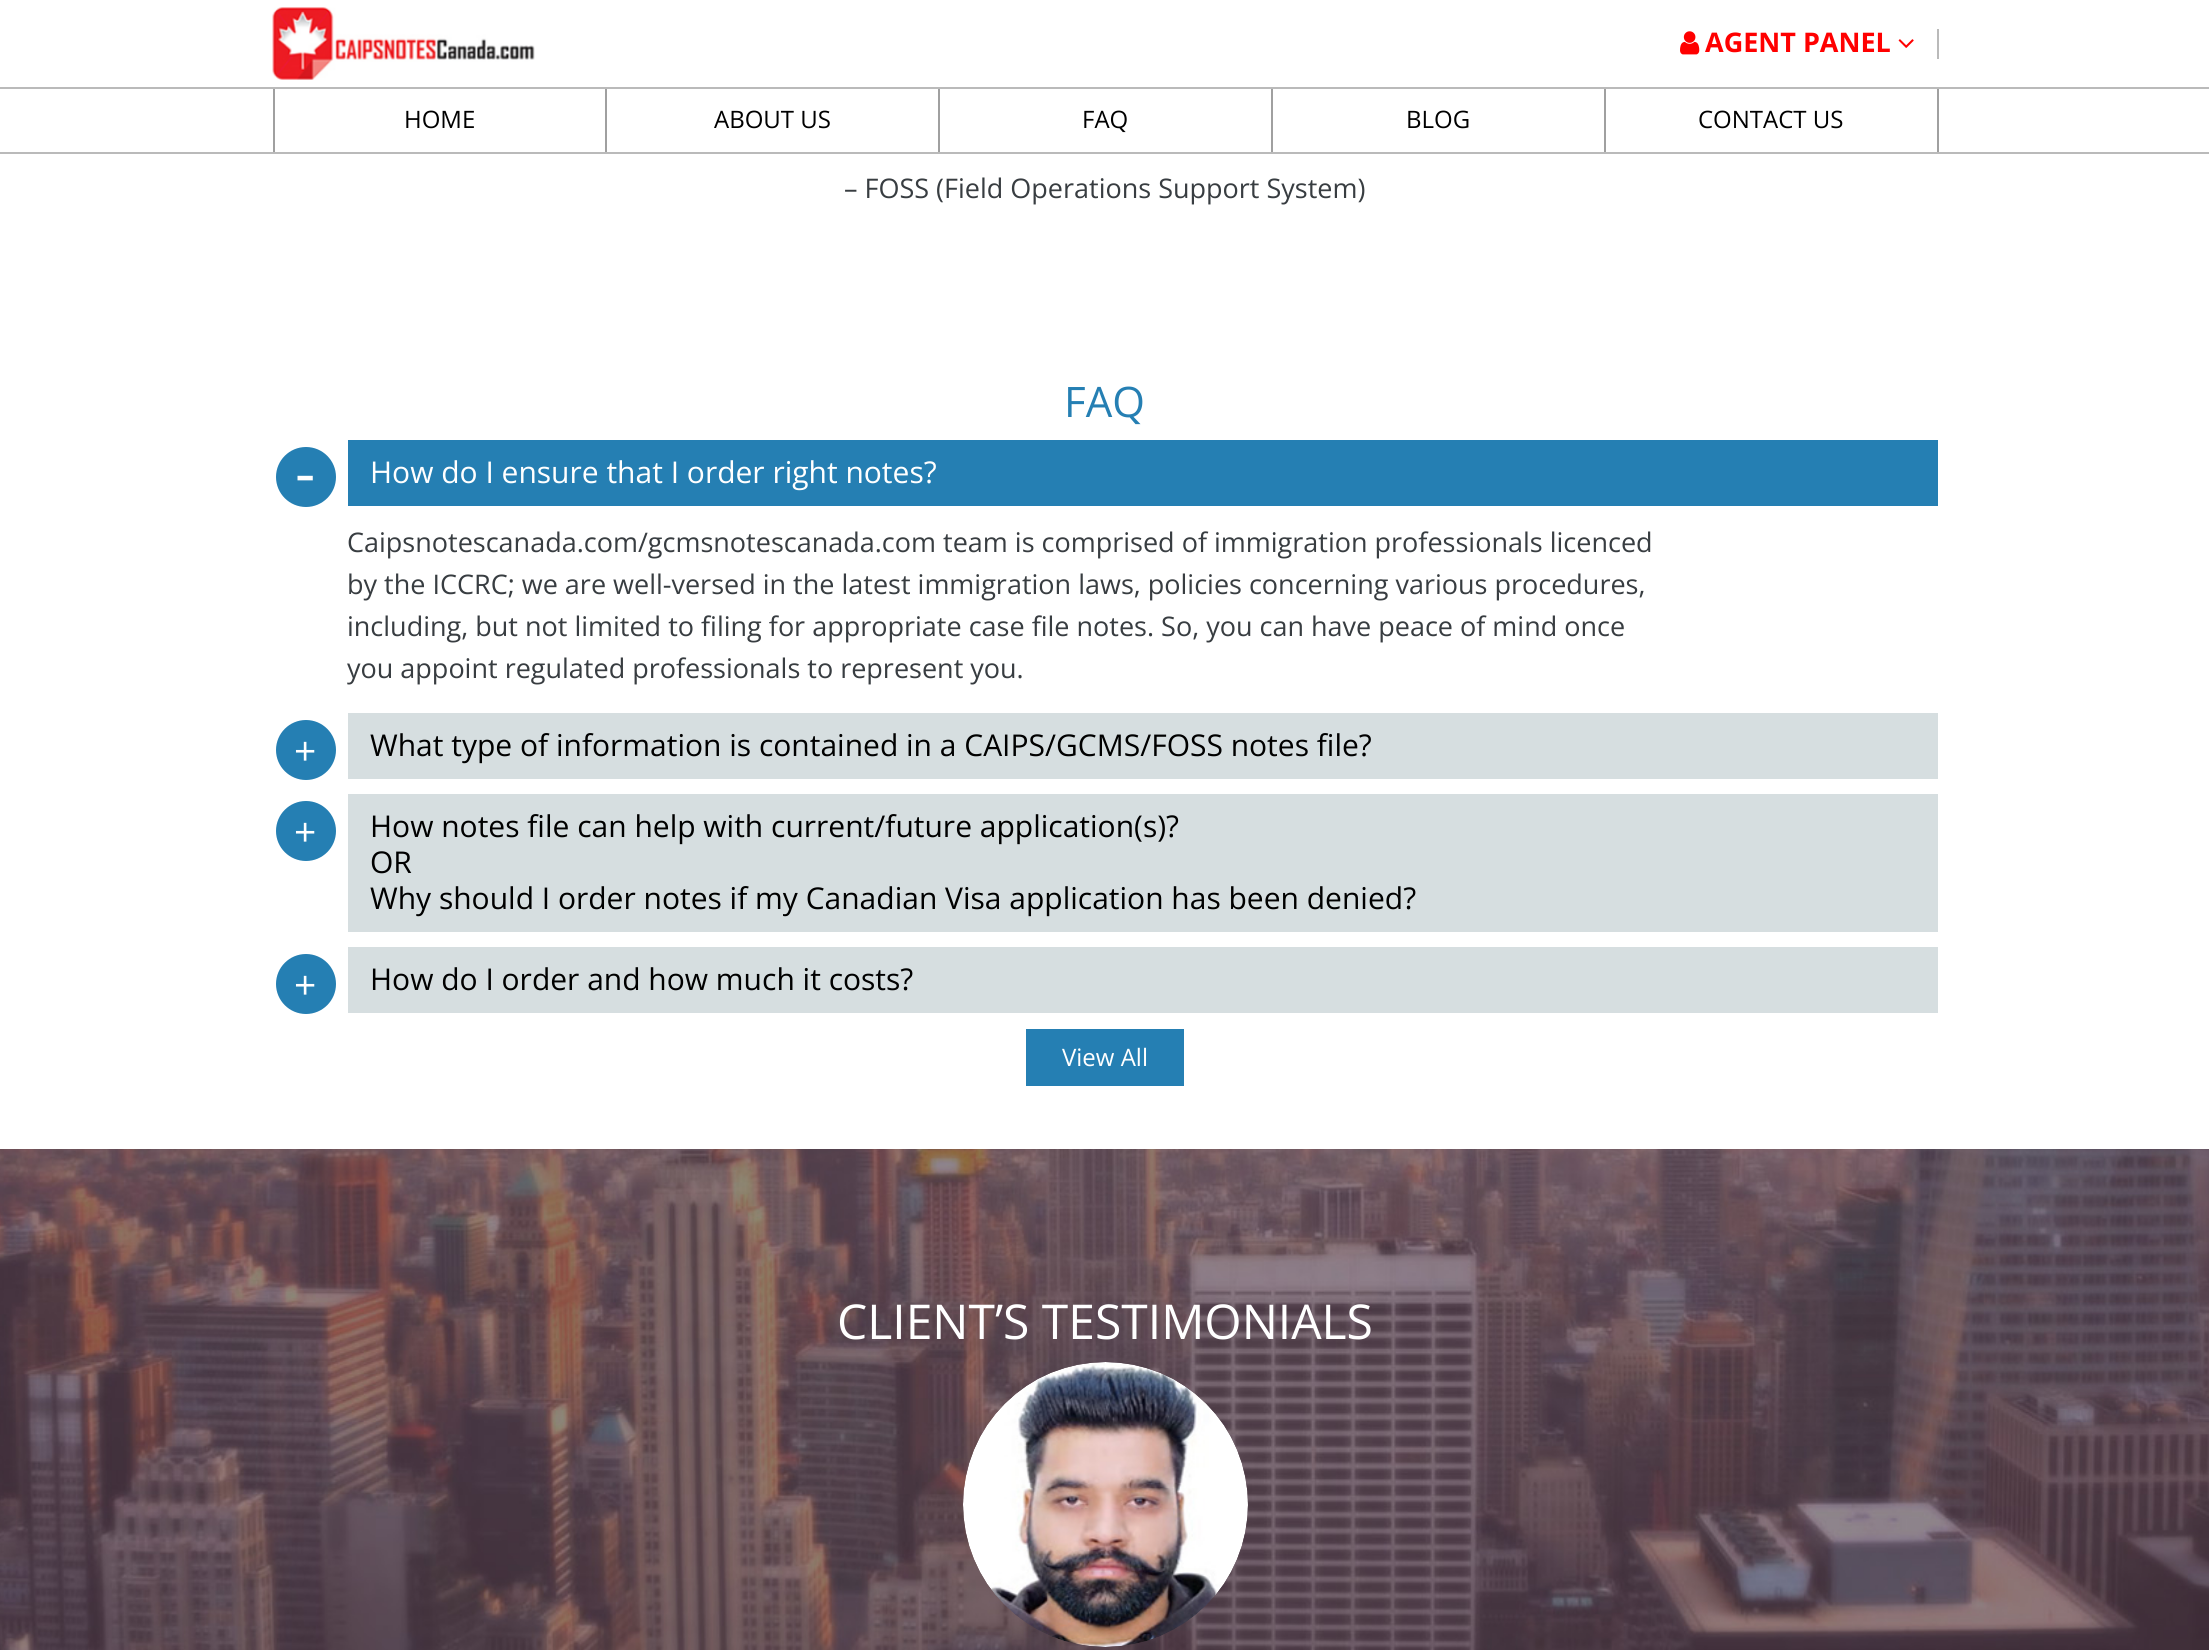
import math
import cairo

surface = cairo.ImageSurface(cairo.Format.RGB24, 2209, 1650)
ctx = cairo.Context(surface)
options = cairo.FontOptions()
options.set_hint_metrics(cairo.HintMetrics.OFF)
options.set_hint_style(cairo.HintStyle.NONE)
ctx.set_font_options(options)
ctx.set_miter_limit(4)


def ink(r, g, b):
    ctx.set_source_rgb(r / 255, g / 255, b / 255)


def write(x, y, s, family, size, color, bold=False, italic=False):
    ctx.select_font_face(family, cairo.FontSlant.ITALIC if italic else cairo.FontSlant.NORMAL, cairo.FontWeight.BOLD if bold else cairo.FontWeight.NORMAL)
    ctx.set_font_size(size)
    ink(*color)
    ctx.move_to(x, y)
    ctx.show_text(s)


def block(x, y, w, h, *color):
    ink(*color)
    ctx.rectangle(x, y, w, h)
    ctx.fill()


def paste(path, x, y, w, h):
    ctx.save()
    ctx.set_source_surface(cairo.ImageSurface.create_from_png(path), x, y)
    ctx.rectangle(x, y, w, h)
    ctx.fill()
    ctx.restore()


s1 = dict(family="Open Sans", size=27, color=(255, 0, 0), bold=True)
s2 = dict(family="Open Sans", size=24, color=(0, 0, 0))
s3 = dict(family="Open Sans", size=27, color=(56, 61, 65))
s4 = dict(family="Open Sans", size=42, color=(37, 127, 179))
s5 = dict(family="Open Sans", size=63, color=(255, 255, 255))
s6 = dict(family="Open Sans", size=30, color=(255, 255, 255))
s7 = dict(family="Open Sans", size=39, color=(255, 255, 255))
s8 = dict(family="Open Sans", size=30, color=(0, 0, 0))
s9 = dict(family="Open Sans", size=24, color=(255, 255, 255))
s10 = dict(family="Open Sans", size=48, color=(255, 255, 255))

ink(255, 255, 255)
ctx.paint()
block(0, 87, 2209, 2, 186, 186, 186)
paste("pic1.png", 272, 7, 263, 73)
paste("pic2.png", 1680, 31, 20, 24)
write(1705, 52, "AGENT PANEL", **s1)
paste("pic3.png", 1898, 39, 16, 9)
block(1937, 29, 2, 30, 186, 186, 186)
block(0, 152, 2209, 2, 186, 186, 186)
block(273, 89, 2, 63, 160, 160, 160)
write(404, 128, "HOME", **s2)
block(605, 89, 2, 63, 160, 160, 160)
write(714, 128, "ABOUT US", **s2)
block(938, 89, 2, 63, 160, 160, 160)
write(1082, 128, "FAQ", **s2)
block(1271, 89, 2, 63, 160, 160, 160)
write(1406, 128, "BLOG", **s2)
block(1937, 89, 2, 63, 160, 160, 160)
block(1604, 89, 2, 63, 160, 160, 160)
write(1698, 128, "CONTACT US", **s2)
write(844, 198, "– FOSS (Field Operations Support System)", **s3)
write(1064, 417, "FAQ", **s4)
block(348, 440, 1590, 66, 37, 127, 179)
ctx.new_path()
ctx.arc(306, 477, 30, 0, 2 * math.pi)
ctx.fill()
write(295, 495, "-", **s5)
write(370, 483, "How do I ensure that I order right notes?", **s6)
write(347, 552, "Caipsnotescanada.com/gcmsnotescanada.com team is comprised of immigration professionals licenced", **s3)
write(347, 594, "by the ICCRC; we are well-versed in the latest immigration laws, policies concerning various procedures,", **s3)
write(347, 636, "including, but not limited to filing for appropriate case file notes. So, you can have peace of mind once", **s3)
write(347, 678, "you appoint regulated professionals to represent you.", **s3)
block(348, 713, 1590, 66, 214, 222, 224)
ink(37, 127, 179)
ctx.new_path()
ctx.arc(306, 750, 30, 0, 2 * math.pi)
ctx.fill()
write(294, 765, "+", **s7)
write(370, 756, "What type of information is contained in a CAIPS/GCMS/FOSS notes file?", **s8)
block(348, 794, 1590, 138, 214, 222, 224)
ink(37, 127, 179)
ctx.new_path()
ctx.arc(306, 831, 30, 0, 2 * math.pi)
ctx.fill()
write(294, 846, "+", **s7)
write(370, 837, "How notes file can help with current/future application(s)?", **s8)
write(370, 873, "OR", **s8)
write(370, 909, "Why should I order notes if my Canadian Visa application has been denied?", **s8)
block(348, 947, 1590, 66, 214, 222, 224)
ink(37, 127, 179)
ctx.new_path()
ctx.arc(306, 984, 30, 0, 2 * math.pi)
ctx.fill()
write(294, 999, "+", **s7)
write(370, 990, "How do I order and how much it costs?", **s8)
block(1026, 1029, 158, 57, 37, 127, 179)
write(1062, 1066, "View All", **s9)
paste("pic4.png", 0, 1149, 2209, 501)
write(837, 1339, "CLIENT’S TESTIMONIALS", **s10)
paste("pic5.png", 963, 1362, 285, 285)
surface.write_to_png("screenshot.png")
